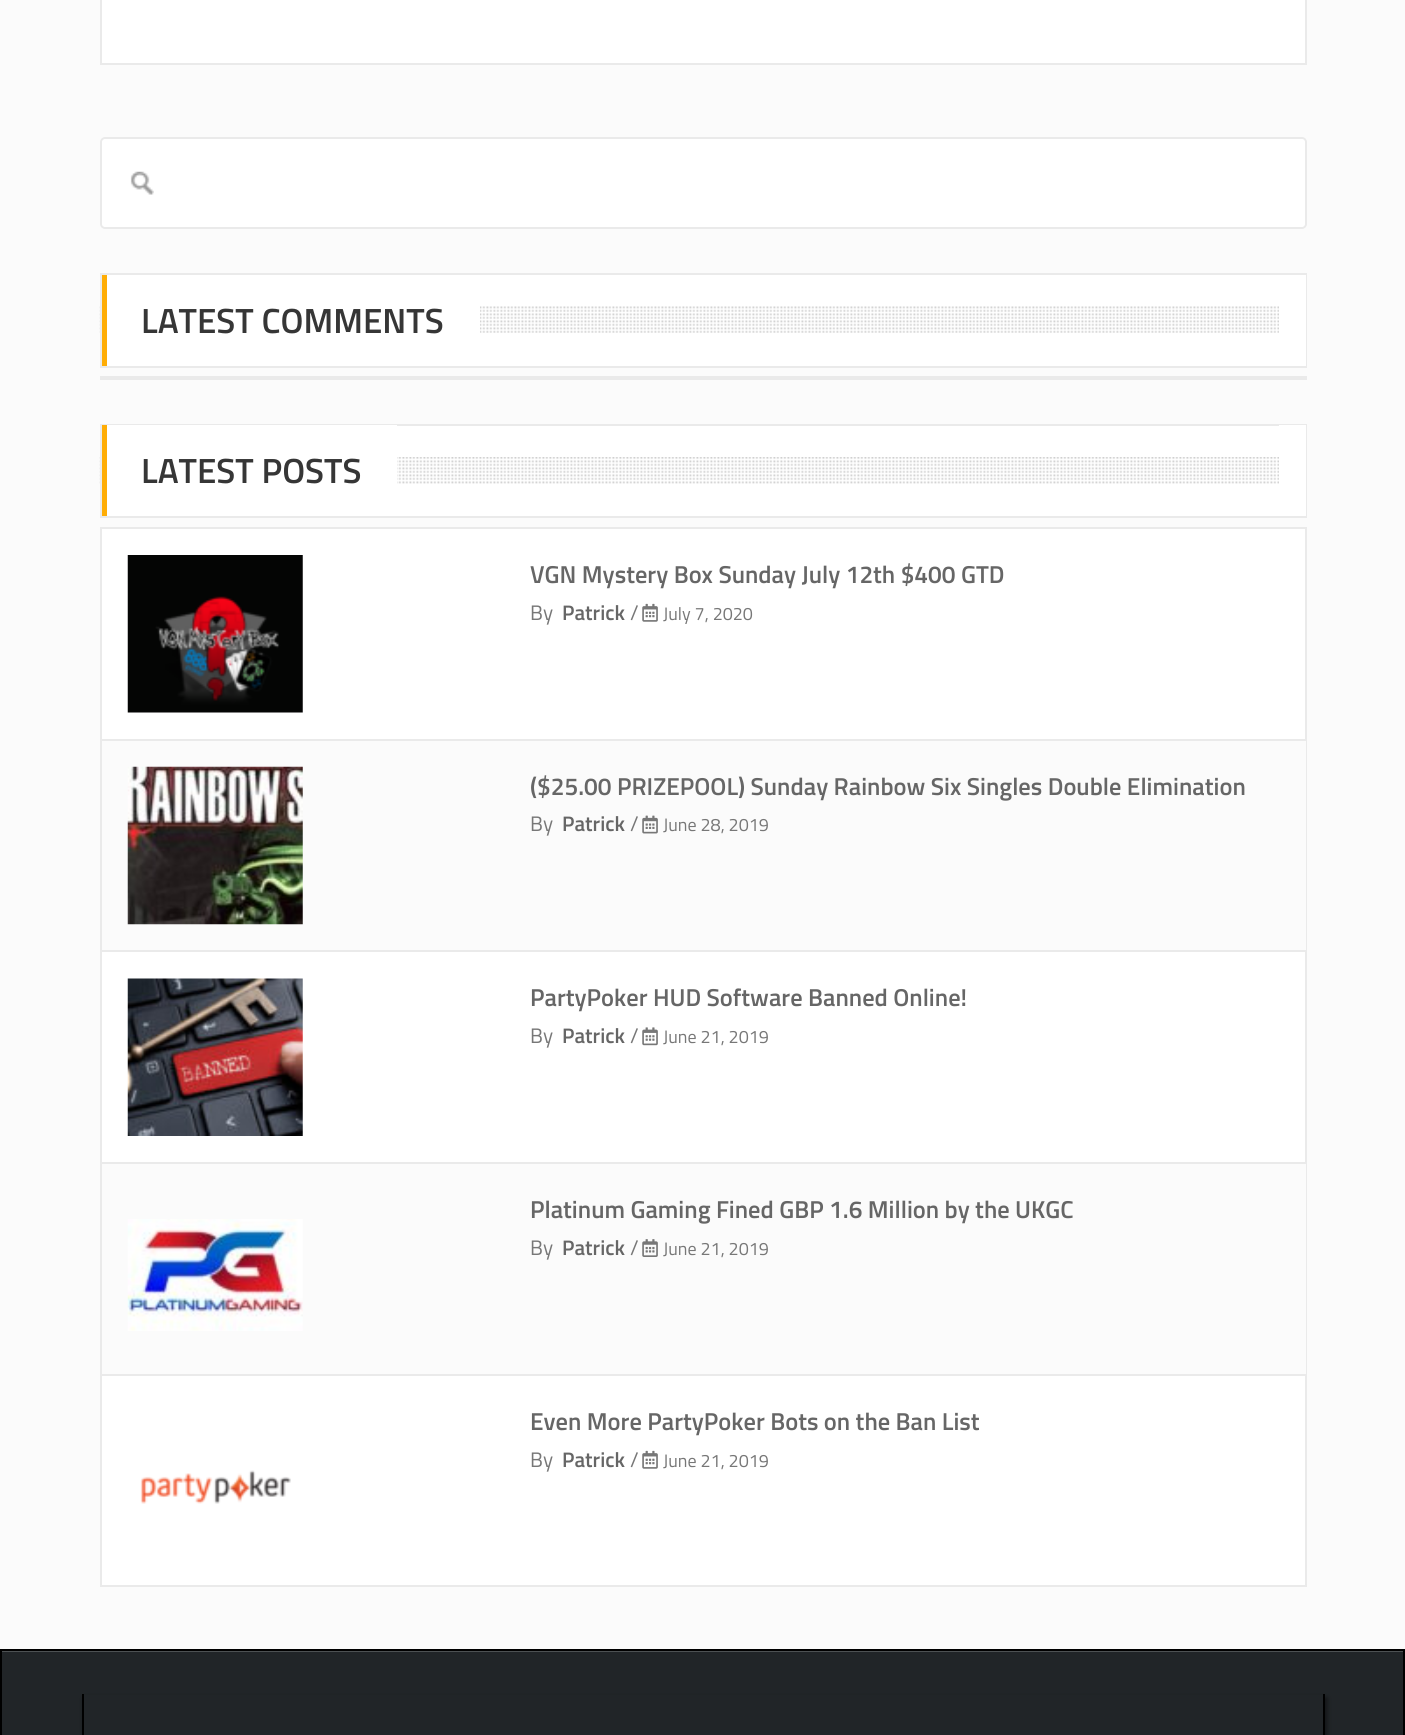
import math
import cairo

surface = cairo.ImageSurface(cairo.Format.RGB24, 1405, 1735)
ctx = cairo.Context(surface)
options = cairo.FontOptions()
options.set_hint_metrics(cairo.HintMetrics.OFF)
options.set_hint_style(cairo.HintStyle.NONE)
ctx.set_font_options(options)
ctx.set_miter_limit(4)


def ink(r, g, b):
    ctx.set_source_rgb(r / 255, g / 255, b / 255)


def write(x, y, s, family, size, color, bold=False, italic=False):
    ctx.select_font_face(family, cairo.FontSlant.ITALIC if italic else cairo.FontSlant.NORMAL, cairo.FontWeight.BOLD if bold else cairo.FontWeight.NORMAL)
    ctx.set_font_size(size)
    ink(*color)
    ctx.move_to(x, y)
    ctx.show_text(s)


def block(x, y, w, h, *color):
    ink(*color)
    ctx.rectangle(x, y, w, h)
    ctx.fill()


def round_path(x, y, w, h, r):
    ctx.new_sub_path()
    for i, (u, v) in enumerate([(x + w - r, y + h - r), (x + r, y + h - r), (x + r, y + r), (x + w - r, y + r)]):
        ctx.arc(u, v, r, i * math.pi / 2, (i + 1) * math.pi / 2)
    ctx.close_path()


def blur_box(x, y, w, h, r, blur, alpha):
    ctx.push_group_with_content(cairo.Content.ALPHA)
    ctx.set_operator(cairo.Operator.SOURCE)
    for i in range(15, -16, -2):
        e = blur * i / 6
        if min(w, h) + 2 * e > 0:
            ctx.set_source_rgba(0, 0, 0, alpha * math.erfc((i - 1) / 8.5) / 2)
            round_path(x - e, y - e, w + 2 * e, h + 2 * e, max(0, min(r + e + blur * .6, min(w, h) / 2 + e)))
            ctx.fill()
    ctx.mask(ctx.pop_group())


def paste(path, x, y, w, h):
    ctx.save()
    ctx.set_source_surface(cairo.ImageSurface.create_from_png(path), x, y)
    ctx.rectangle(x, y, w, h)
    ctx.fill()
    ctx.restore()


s1 = dict(family="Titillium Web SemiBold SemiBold", size=35, color=(54, 54, 54))
s2 = dict(family="Titillium Web SemiBold SemiBold", size=24.5, color=(102, 102, 102))
s3 = dict(family="Titillium Web", size=21, color=(119, 119, 119))
s4 = dict(family="Titillium Web SemiBold SemiBold", size=21, color=(102, 102, 102))
s5 = dict(family="Titillium Web", size=18, color=(119, 119, 119))

ink(251, 251, 251)
ctx.paint()
ink(255, 255, 255)
ctx.rectangle(101, -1, 1205, 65)
ctx.fill_preserve()
ink(234, 234, 234)
ctx.stroke()
ink(255, 255, 255)
round_path(100, 137, 1207, 92, 5)
ctx.fill()
paste("pic1.png", 130, 171, 24, 24)
round_path(101, 138, 1205, 90, 4)
ink(234, 234, 234)
ctx.stroke()
block(480, 275, 799, 91, 255, 255, 255)
paste("pic2.png", 99, 306, 1180, 27)
ctx.rectangle(101, 274, 1205, 93)
ink(234, 234, 234)
ctx.stroke()
block(107, 275, 373, 91, 255, 255, 255)
block(102, 275, 5, 91, 255, 173, 5)
write(141, 333, "LATEST COMMENTS", **s1)
block(1279, 275, 27, 91, 255, 255, 255)
block(100, 376, 1207, 4, 234, 234, 234)
block(397, 426, 882, 90, 255, 255, 255)
paste("pic3.png", 99, 457, 1180, 27)
ctx.rectangle(101, 425, 1205, 92)
ink(234, 234, 234)
ctx.stroke()
block(107, 425, 290, 91, 255, 255, 255)
block(102, 425, 5, 91, 255, 173, 5)
write(141, 483, "LATEST POSTS", **s1)
block(1279, 425, 27, 91, 255, 255, 255)
ctx.rectangle(101, 528, 1205, 1058)
ctx.fill_preserve()
ink(234, 234, 234)
ctx.stroke()
paste("pic4.png", 127, 555, 176, 158)
write(530, 583, "VGN Mystery Box Sunday July 12th $400 GTD", **s2)
write(530, 620, "By", **s3)
write(562, 620, "Patrick", **s4)
write(630, 620, "/", **s3)
paste("pic5.png", 642, 603, 16, 19)
write(663, 620, "July 7, 2020", **s5)
block(102, 741, 1204, 209, 251, 251, 251)
block(102, 739, 1204, 2, 234, 234, 234)
paste("pic6.png", 127, 766, 176, 159)
write(530, 795, "($25.00 PRIZEPOOL) Sunday Rainbow Six Singles Double Elimination", **s2)
write(530, 831, "By", **s3)
write(562, 831, "Patrick", **s4)
write(630, 831, "/", **s3)
paste("pic7.png", 642, 815, 16, 19)
write(663, 831, "June 28, 2019", **s5)
block(102, 950, 1204, 2, 234, 234, 234)
paste("pic8.png", 127, 978, 176, 158)
write(530, 1006, "PartyPoker HUD Software Banned Online!", **s2)
write(530, 1043, "By", **s3)
write(562, 1043, "Patrick", **s4)
write(630, 1043, "/", **s3)
paste("pic9.png", 642, 1027, 16, 19)
write(663, 1043, "June 21, 2019", **s5)
block(102, 1164, 1204, 210, 251, 251, 251)
block(102, 1162, 1204, 2, 234, 234, 234)
paste("pic10.png", 127, 1219, 176, 112)
write(530, 1218, "Platinum Gaming Fined GBP 1.6 Million by the UKGC", **s2)
write(530, 1255, "By", **s3)
write(562, 1255, "Patrick", **s4)
write(630, 1255, "/", **s3)
paste("pic11.png", 642, 1239, 16, 18)
write(663, 1255, "June 21, 2019", **s5)
block(102, 1374, 1204, 2, 234, 234, 234)
write(530, 1430, "Even More PartyPoker Bots on the Ban List", **s2)
write(530, 1467, "By", **s3)
write(562, 1467, "Patrick", **s4)
write(630, 1467, "/", **s3)
paste("pic5.png", 642, 1450, 16, 19)
write(663, 1467, "June 21, 2019", **s5)
paste("pic12.png", 140, 1470, 151, 34)
block(2, 1652, 1401, 83, 33, 37, 40)
block(2, 1651, 1402, 1, 77, 81, 83)
ctx.rectangle(1, 1650, 1403, 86)
ink(0, 0, 0)
ctx.stroke()
ink(0, 0, 0)
blur_box(84, 1698, 1243, 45, 0, 2.5, 0.5)
block(84, 1695, 1239, 40, 33, 37, 40)
block(1323, 1694, 2, 41, 0, 0, 0)
block(82, 1694, 2, 41, 0, 0, 0)
surface.write_to_png("screenshot.png")
